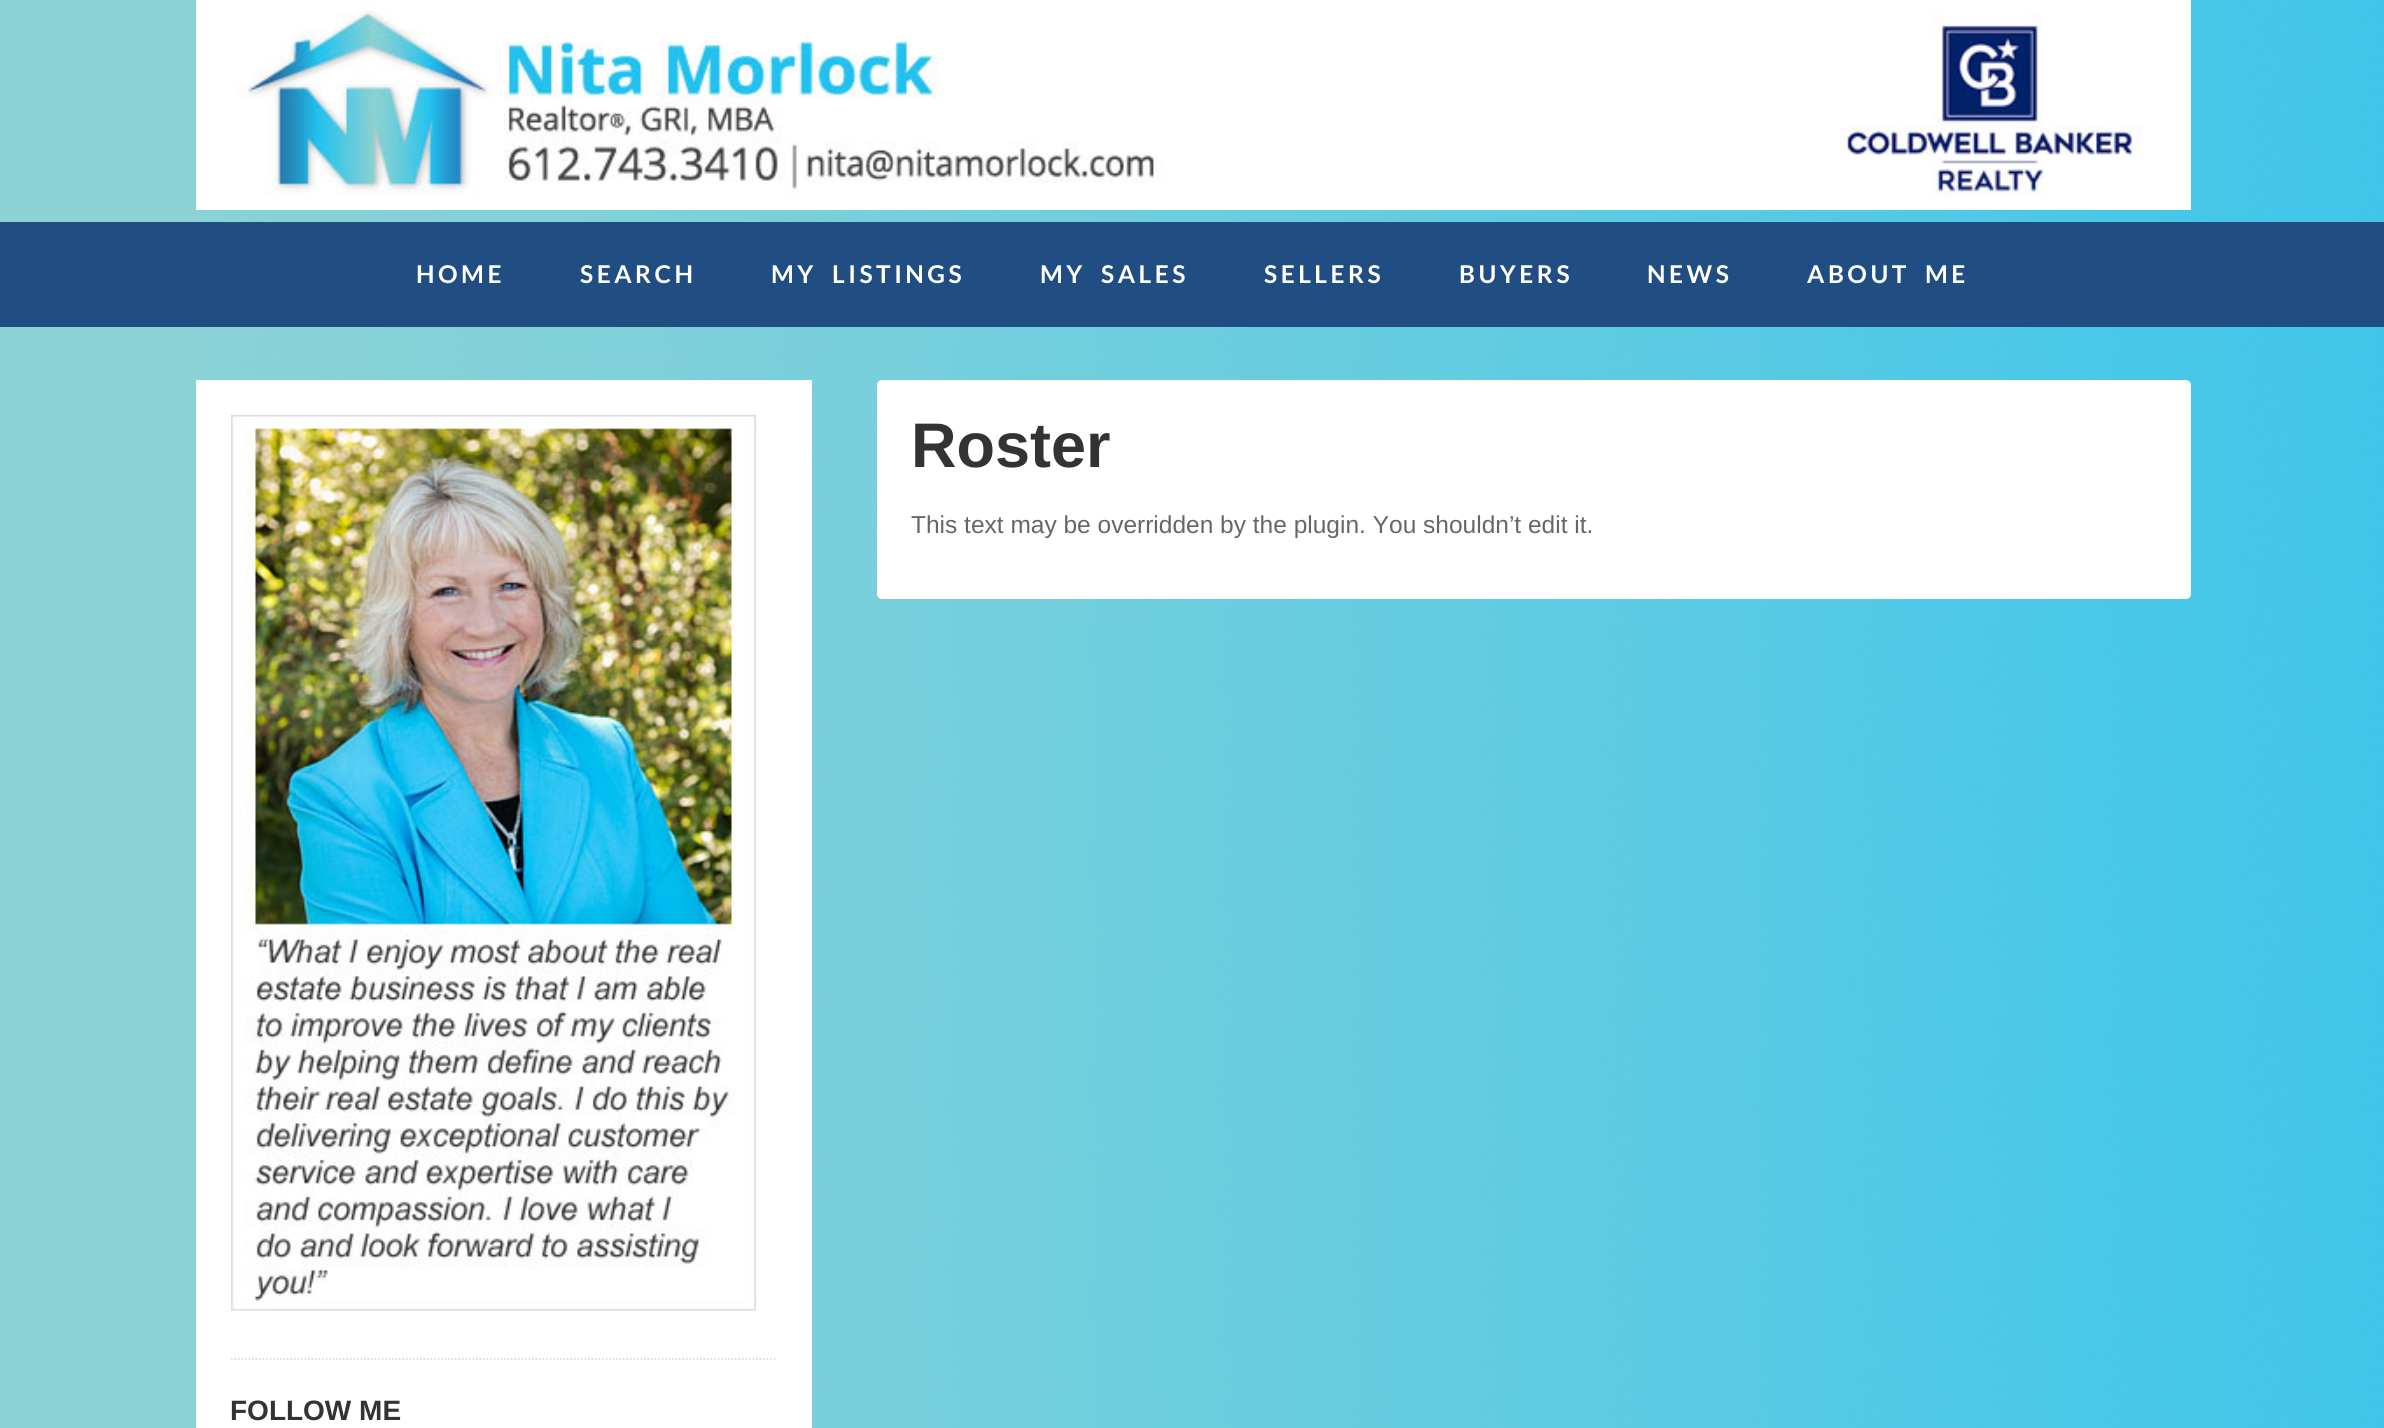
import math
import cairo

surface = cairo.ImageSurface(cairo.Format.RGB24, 2384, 1428)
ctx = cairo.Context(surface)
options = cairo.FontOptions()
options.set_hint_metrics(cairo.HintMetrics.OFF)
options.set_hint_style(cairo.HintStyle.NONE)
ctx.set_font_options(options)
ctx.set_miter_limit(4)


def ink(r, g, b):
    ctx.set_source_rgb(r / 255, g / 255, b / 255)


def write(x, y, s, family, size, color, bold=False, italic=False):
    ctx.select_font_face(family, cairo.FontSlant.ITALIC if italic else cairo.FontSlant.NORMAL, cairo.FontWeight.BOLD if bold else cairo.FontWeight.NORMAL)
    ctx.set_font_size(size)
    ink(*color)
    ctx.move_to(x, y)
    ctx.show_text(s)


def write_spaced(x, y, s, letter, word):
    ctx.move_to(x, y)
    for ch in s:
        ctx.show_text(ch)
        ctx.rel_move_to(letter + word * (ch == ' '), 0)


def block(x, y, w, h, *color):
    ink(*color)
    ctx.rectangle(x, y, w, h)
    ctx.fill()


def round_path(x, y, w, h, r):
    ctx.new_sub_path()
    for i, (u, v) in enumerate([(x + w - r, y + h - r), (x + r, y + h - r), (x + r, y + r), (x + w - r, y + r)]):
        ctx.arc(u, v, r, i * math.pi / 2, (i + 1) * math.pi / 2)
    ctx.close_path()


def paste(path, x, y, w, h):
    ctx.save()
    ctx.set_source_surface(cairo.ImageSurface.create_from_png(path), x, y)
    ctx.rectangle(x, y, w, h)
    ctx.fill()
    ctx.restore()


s1 = dict(family="Liberation Sans", size=63, color=(51, 51, 51), bold=True)
s2 = dict(family="Liberation Sans", size=24.5, color=(102, 102, 102))
s3 = dict(family="Liberation Sans", size=28, color=(51, 51, 51), bold=True)

ink(141, 211, 213)
ctx.paint()
paste("pic1.png", 198, 0, 2186, 1428)
paste("pic2.png", 196, 0, 1995, 210)
block(0, 222, 2384, 105, 32, 78, 131)
ctx.select_font_face("Lato", cairo.FontSlant.NORMAL, cairo.FontWeight.BOLD)
ctx.set_font_size(24.5)
ink(255, 255, 255)
write_spaced(416, 283, "HOME", 3.5, 0)
write_spaced(580, 283, "SEARCH", 3.5, 0)
write_spaced(771, 283, "MY LISTINGS", 3.5, 7)
write_spaced(1040, 283, "MY SALES", 3.5, 7)
write_spaced(1264, 283, "SELLERS", 3.5, 0)
write_spaced(1459, 283, "BUYERS", 3.5, 0)
write_spaced(1647, 283, "NEWS", 3.5, 0)
write_spaced(1807, 283, "ABOUT ME", 3.5, 7)
round_path(877, 380, 1314, 219, 5)
ctx.fill()
write(911, 467, "Roster", **s1)
write(911, 533, "This text may be overridden by the plugin. You shouldn’t edit it.", **s2)
block(196, 380, 616, 1048, 255, 255, 255)
ctx.new_path()
ctx.move_to(231, 1359)
ctx.line_to(777, 1359)
ink(221, 221, 221)
ctx.set_line_width(1.8)
ctx.set_dash([1.75, 1.75])
ctx.stroke()
paste("pic3.png", 231, 414, 525, 897)
write(230, 1420, "FOLLOW ME", **s3)
surface.write_to_png("screenshot.png")
